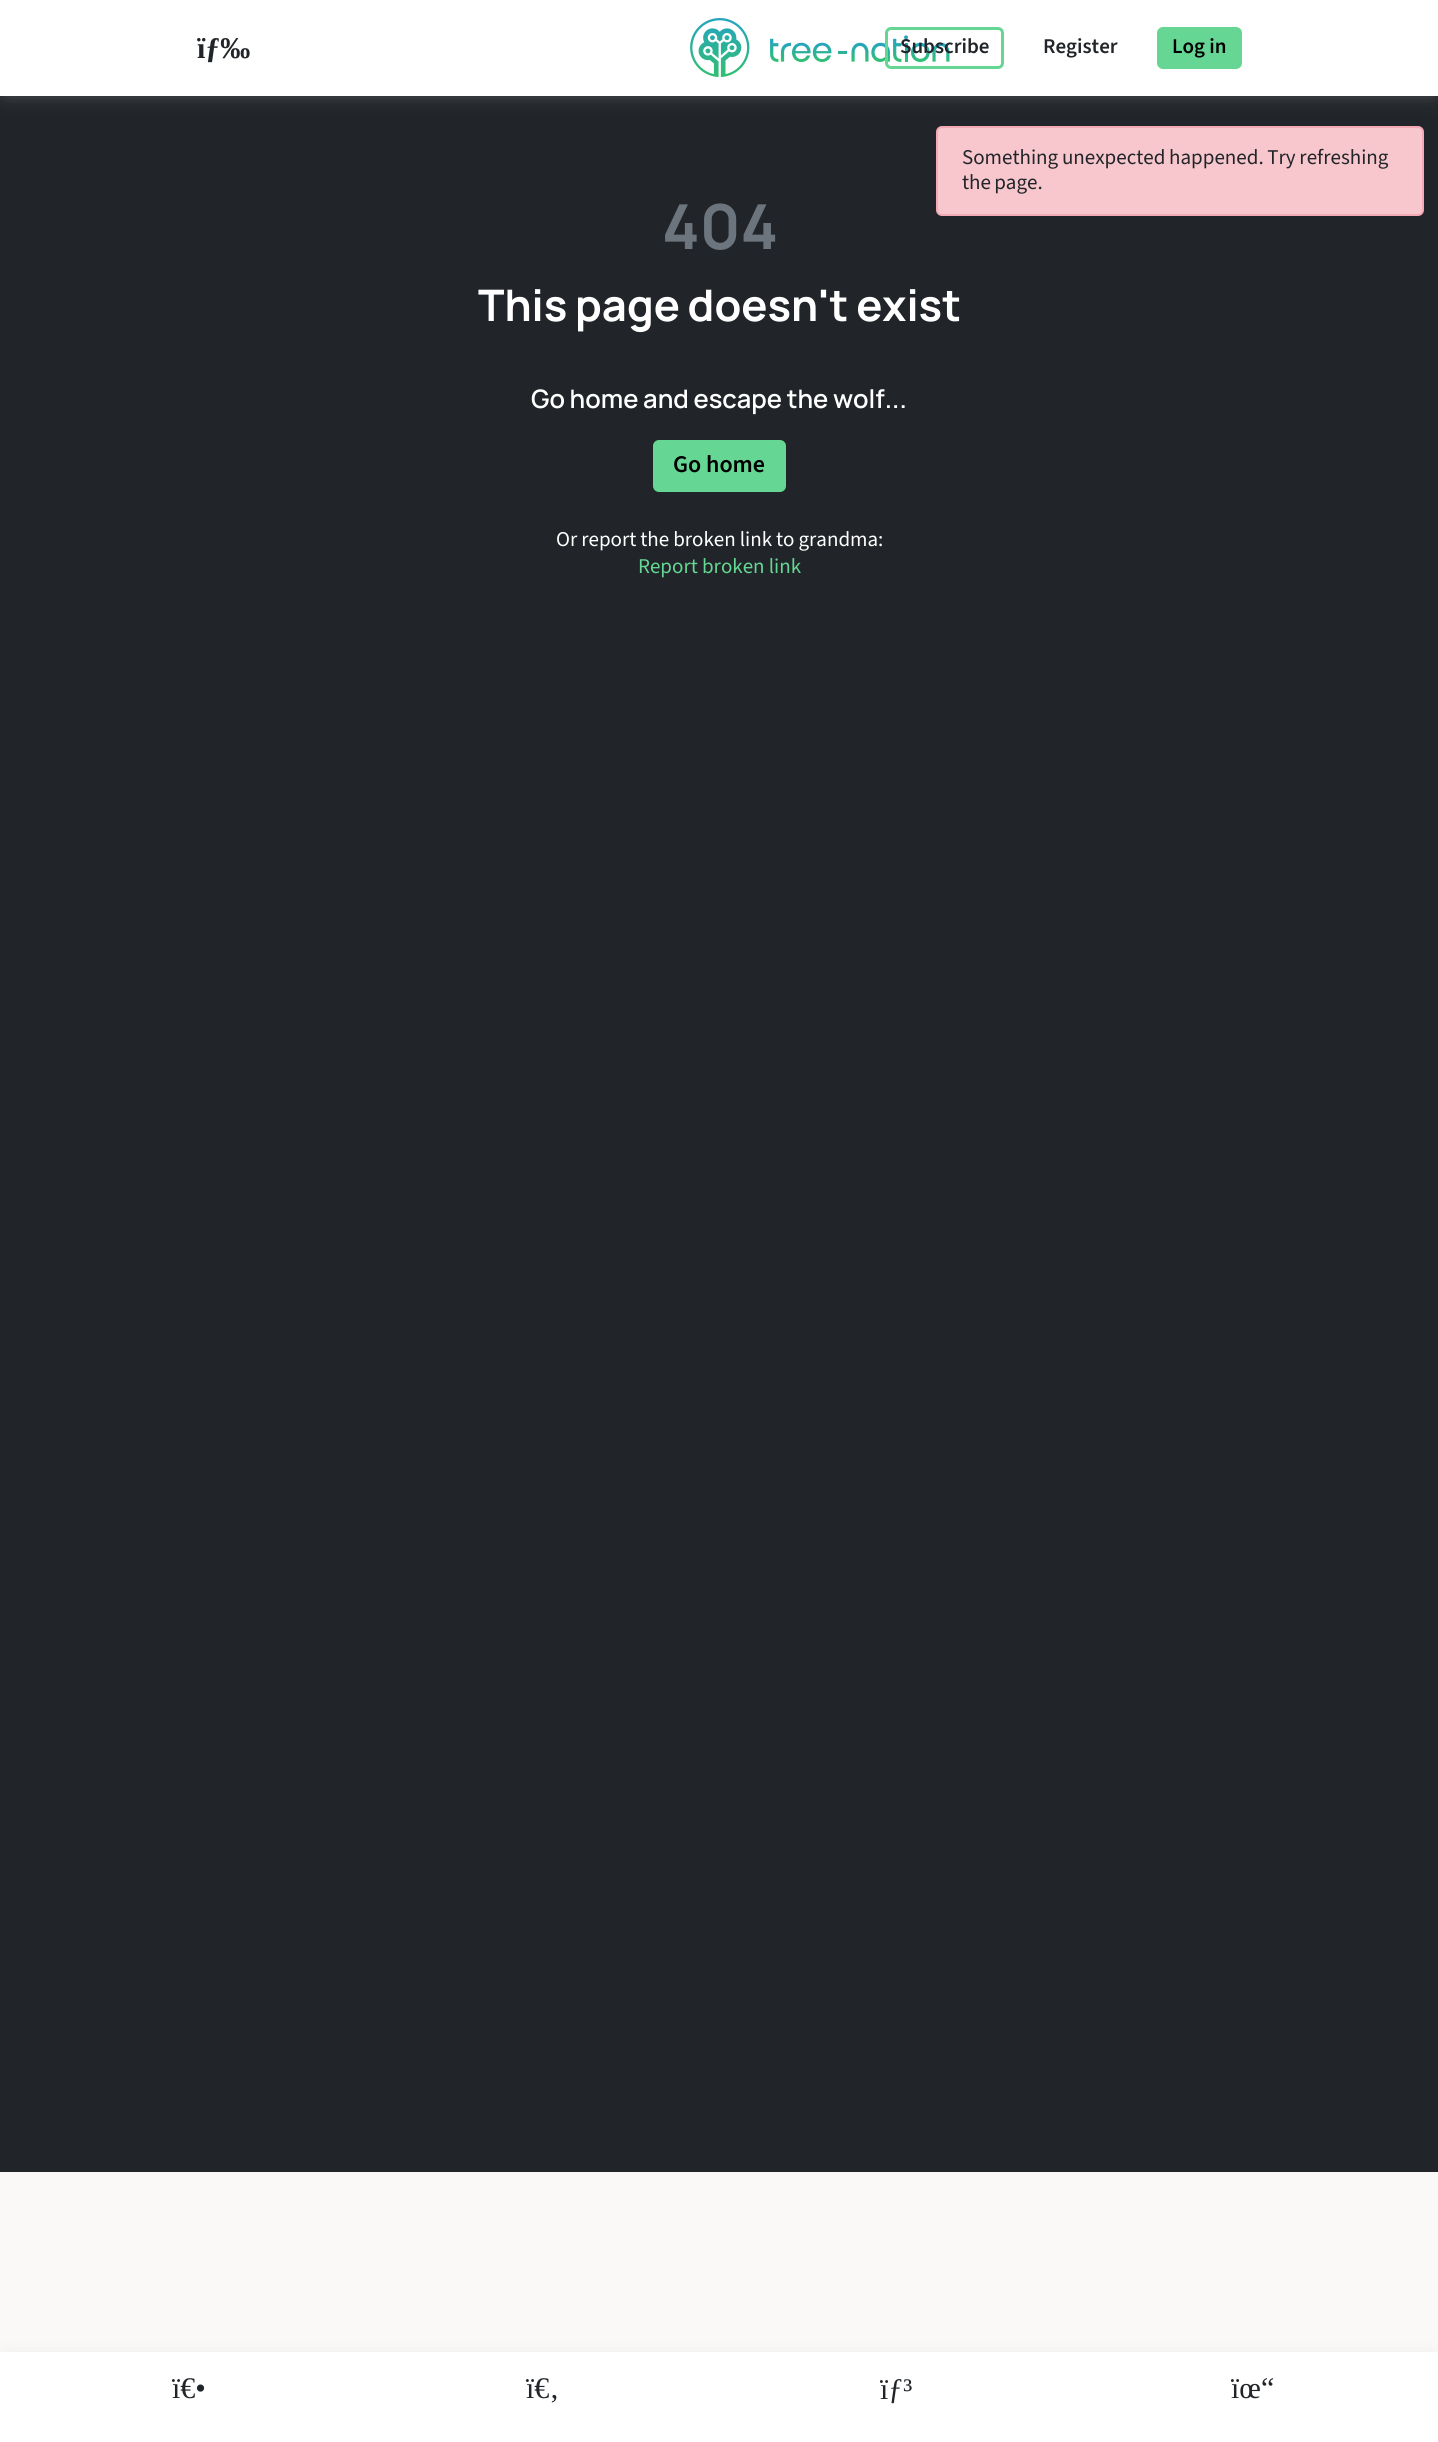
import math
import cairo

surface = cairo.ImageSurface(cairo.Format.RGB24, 1438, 2442)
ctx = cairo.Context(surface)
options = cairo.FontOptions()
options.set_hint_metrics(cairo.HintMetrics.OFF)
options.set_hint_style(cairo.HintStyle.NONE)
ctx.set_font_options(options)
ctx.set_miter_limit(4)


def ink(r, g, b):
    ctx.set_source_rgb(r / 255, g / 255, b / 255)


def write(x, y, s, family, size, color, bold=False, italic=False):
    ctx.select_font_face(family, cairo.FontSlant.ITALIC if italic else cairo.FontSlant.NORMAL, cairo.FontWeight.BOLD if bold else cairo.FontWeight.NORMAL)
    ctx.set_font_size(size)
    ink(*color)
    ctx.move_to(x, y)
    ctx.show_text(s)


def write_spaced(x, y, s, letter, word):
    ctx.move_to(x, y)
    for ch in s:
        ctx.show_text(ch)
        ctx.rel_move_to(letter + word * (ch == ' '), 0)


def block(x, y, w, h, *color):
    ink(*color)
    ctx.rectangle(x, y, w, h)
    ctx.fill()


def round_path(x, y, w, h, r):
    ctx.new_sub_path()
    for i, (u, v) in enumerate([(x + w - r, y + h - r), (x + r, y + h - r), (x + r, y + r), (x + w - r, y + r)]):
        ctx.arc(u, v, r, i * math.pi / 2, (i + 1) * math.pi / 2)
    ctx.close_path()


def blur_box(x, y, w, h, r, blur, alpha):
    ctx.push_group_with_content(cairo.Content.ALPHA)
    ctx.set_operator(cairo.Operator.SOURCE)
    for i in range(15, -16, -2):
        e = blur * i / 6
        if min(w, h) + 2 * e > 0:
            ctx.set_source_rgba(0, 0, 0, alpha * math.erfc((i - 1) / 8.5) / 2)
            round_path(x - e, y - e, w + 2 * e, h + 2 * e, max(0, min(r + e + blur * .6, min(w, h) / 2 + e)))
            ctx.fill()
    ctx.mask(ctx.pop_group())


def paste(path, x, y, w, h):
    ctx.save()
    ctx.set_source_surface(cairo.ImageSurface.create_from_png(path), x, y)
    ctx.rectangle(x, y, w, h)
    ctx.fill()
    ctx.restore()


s1 = dict(family="Liberation Serif", size=30, color=(33, 37, 41), bold=True)
s2 = dict(family="Source Sans 3 SemiBold", size=21, color=(33, 37, 41))
s3 = dict(family="Source Sans 3 SemiBold", size=21, color=(0, 0, 0))
s4 = dict(family="Manrope", size=62, color=(108, 117, 125), bold=True)
s5 = dict(family="Source Sans 3 SemiBold", size=24, color=(0, 0, 0))
s6 = dict(family="Source Sans 3", size=21, color=(101, 214, 147))
s7 = dict(family="Liberation Serif", size=30, color=(33, 37, 41))

ink(250, 249, 247)
ctx.paint()
block(0, 96, 1438, 2076, 33, 37, 41)
ink(179, 172, 167)
blur_box(6, 6, 1427, 84, 0, 11, 0.55)
block(0, 0, 1438, 96, 255, 255, 255)
write(197, 58, "ïƒ‰", **s1)
paste("pic1.png", 690, 18, 260, 59)
round_path(886.5, 28.5, 116, 39, 4.5)
ink(101, 214, 147)
ctx.set_line_width(3)
ctx.stroke()
write(900, 53, "Subscribe", **s2)
write(1043, 53, "Register", **s2)
ink(101, 214, 147)
round_path(1158.5, 28.5, 82, 39, 4.5)
ctx.fill_preserve()
ctx.stroke()
write(1172, 53, "Log in", **s3)
write(662, 249, "404", **s4)
ctx.set_font_size(43.5)
ink(255, 255, 255)
write_spaced(478, 321, "This page doesn't exist", 0, -1)
ctx.select_font_face("Manrope SemiBold")
ctx.set_font_size(25.5)
write_spaced(531, 408, "Go home and escape the wolf...", 0, -0.5)
ink(101, 214, 147)
round_path(654.5, 441.5, 130, 49, 4.5)
ctx.fill_preserve()
ctx.stroke()
write(673, 472, "Go home", **s5)
ctx.select_font_face("Source Sans 3")
ctx.set_font_size(21)
ink(255, 255, 255)
write_spaced(556, 546, "Or report the broken link to grandma:", 0, -0.25)
write(638, 573, "Report broken link", **s6)
ink(179, 172, 167)
blur_box(6, 2364, 1427, 78, 0, 11, 0.55)
block(0, 2352, 1438, 90, 255, 255, 255)
write(172, 2398, "ï€•", **s7)
write(526, 2398, "ï€‚", **s7)
write(880, 2399, "ïƒ³", **s7)
write(1231, 2398, "ïœ“", **s7)
ink(247, 199, 205)
round_path(937, 127, 486, 88, 5)
ctx.fill_preserve()
ink(244, 170, 181)
ctx.set_line_width(2)
ctx.stroke()
ctx.select_font_face("Source Sans 3")
ctx.set_font_size(21)
ink(33, 37, 41)
write_spaced(962, 164, "Something unexpected happened. Try refreshing", 0, -0.5)
write_spaced(962, 189, "the page.", 0, -1)
surface.write_to_png("screenshot.png")
